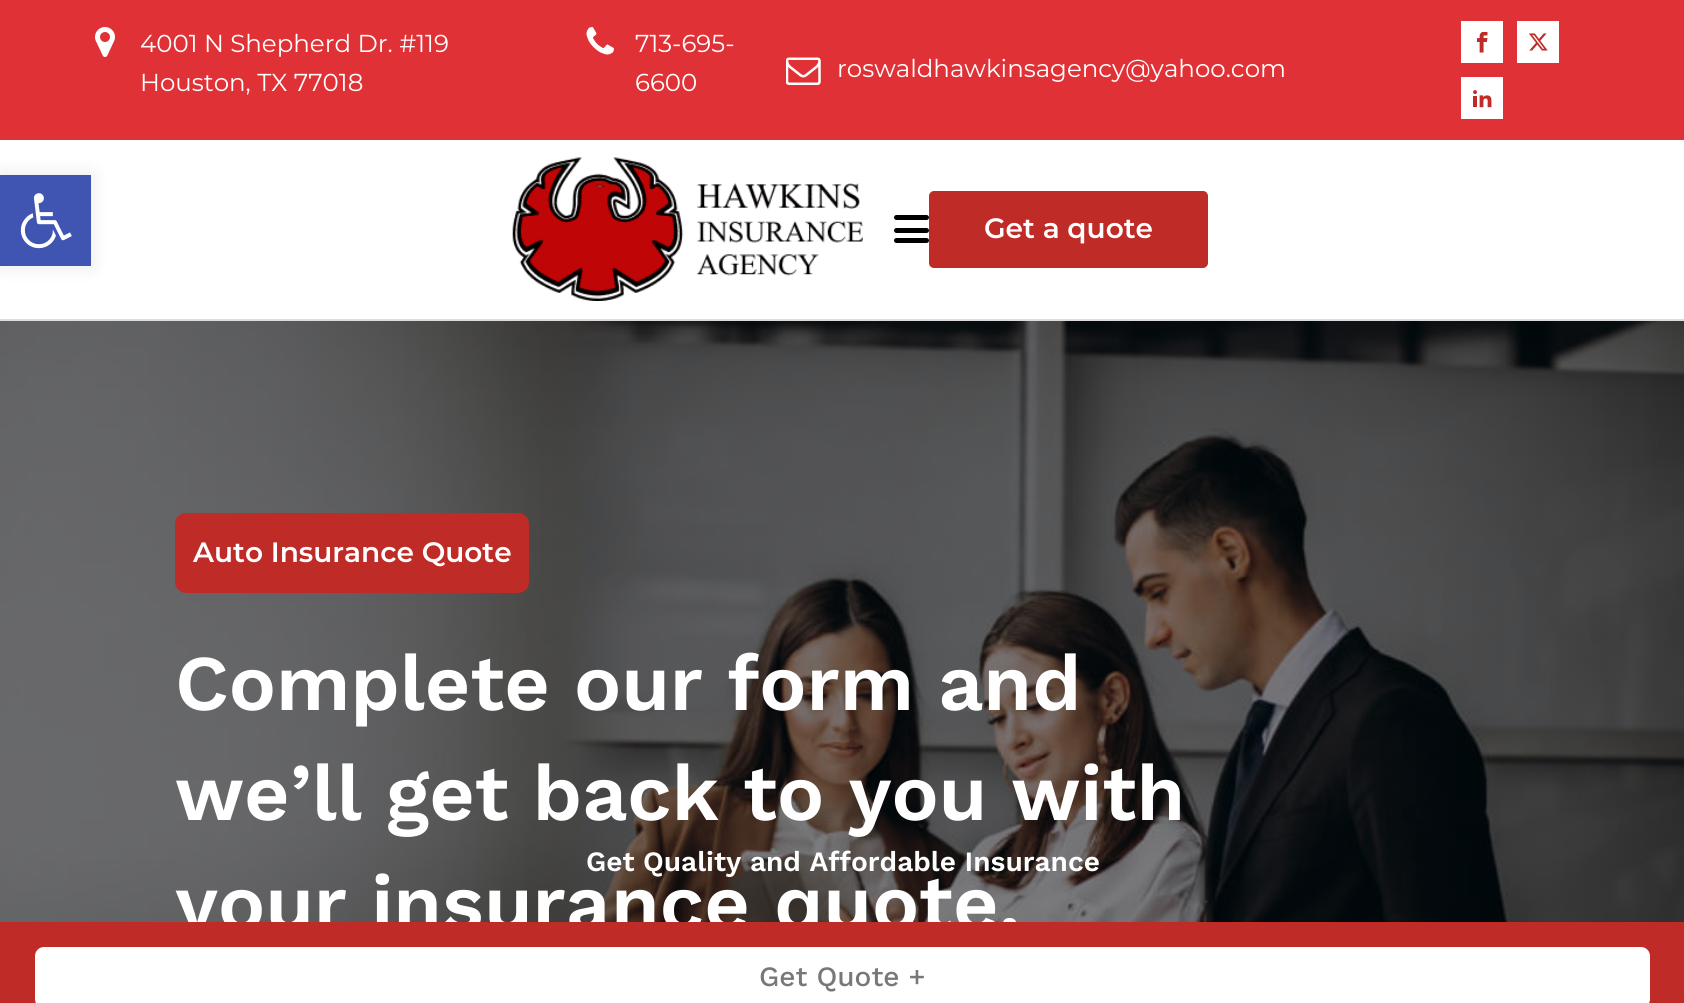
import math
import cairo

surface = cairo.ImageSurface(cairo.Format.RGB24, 1684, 1003)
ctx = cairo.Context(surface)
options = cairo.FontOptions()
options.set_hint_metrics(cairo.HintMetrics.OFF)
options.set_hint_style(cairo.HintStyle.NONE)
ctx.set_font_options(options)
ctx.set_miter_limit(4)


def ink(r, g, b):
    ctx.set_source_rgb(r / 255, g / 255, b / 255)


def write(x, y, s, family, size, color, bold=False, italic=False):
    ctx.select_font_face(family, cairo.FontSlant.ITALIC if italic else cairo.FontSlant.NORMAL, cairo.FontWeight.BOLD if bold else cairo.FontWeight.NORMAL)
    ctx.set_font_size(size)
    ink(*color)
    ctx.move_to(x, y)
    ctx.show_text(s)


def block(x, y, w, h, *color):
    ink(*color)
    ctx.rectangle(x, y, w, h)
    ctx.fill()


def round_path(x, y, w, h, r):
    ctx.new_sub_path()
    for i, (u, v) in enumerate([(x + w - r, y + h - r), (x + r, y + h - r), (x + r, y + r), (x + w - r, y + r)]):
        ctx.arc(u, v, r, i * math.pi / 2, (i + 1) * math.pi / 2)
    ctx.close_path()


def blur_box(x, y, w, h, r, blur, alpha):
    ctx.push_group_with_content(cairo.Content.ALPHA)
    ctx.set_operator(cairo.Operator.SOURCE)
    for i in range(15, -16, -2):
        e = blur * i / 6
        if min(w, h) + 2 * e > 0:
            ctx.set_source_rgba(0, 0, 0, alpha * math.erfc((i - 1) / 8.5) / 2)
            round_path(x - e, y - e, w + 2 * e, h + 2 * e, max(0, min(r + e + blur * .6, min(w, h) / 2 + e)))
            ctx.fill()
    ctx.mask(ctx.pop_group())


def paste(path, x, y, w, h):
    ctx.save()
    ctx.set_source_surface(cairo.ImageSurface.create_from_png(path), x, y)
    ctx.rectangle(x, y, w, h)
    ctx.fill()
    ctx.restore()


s1 = dict(family="Montserrat", size=24.5, color=(255, 255, 255))
s2 = dict(family="Montserrat SemiBold", size=28, color=(255, 255, 255))
s3 = dict(family="Work Sans SemiBold", size=78.75, color=(255, 255, 255))
s4 = dict(family="Work Sans SemiBold", size=28, color=(255, 255, 255))
s5 = dict(family="Work Sans Medium", size=28, color=(120, 120, 120))

ink(255, 255, 255)
ctx.paint()
ink(0, 0, 0)
blur_box(0, 175, 91, 91, 0, 9, 0.1)
block(0, 175, 91, 91, 64, 84, 178)
paste("pic1.png", 20, 193, 52, 56)
block(0, 0, 1684, 140, 224, 50, 54)
paste("pic2.png", 95, 27, 20, 30)
write(140, 52, "4001 N Shepherd Dr. #119", **s1)
write(140, 91, "Houston, TX 77018", **s1)
paste("pic3.png", 586, 27, 28, 28)
write(635, 52, "713-695-", **s1)
write(635, 91, "6600", **s1)
paste("pic4.png", 786, 57, 35, 28)
write(837, 77, "roswaldhawkinsagency@yahoo.com", **s1)
block(1461, 21, 42, 42, 255, 255, 255)
paste("pic5.png", 1477, 32, 11, 21)
block(1517, 21, 42, 42, 255, 255, 255)
paste("pic6.png", 1529, 33, 19, 18)
block(1461, 77, 42, 42, 255, 255, 255)
paste("pic7.png", 1473, 90, 19, 18)
block(0, 319, 1684, 2, 221, 221, 221)
paste("pic8.png", 512, 157, 351, 144)
ink(0, 0, 0)
round_path(894, 215, 35, 5, 2.5)
ctx.fill()
round_path(894, 228, 35, 5, 2.5)
ctx.fill()
round_path(894, 238, 35, 5, 2.5)
ctx.fill()
ink(191, 43, 39)
round_path(930, 192, 277, 75, 4)
ctx.fill_preserve()
ctx.stroke()
write(984, 238, "Get a quote", **s2)
paste("pic9.png", 0, 321, 1684, 601)
ink(191, 43, 39)
round_path(175, 513, 354, 80, 11)
ctx.fill()
write(193, 562, "Auto Insurance Quote", **s2)
write(175, 710, "Complete our form and", **s3)
write(175, 820, "we’ll get back to you with", **s3)
write(175, 930, "your insurance quote.", **s3)
block(0, 922, 1684, 81, 191, 43, 39)
write(586, 871, "Get Quality and Affordable Insurance", **s4)
round_path(35, 947, 1615, 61, 9)
ctx.fill()
write(759, 986, "Get Quote +", **s5)
surface.write_to_png("screenshot.png")
